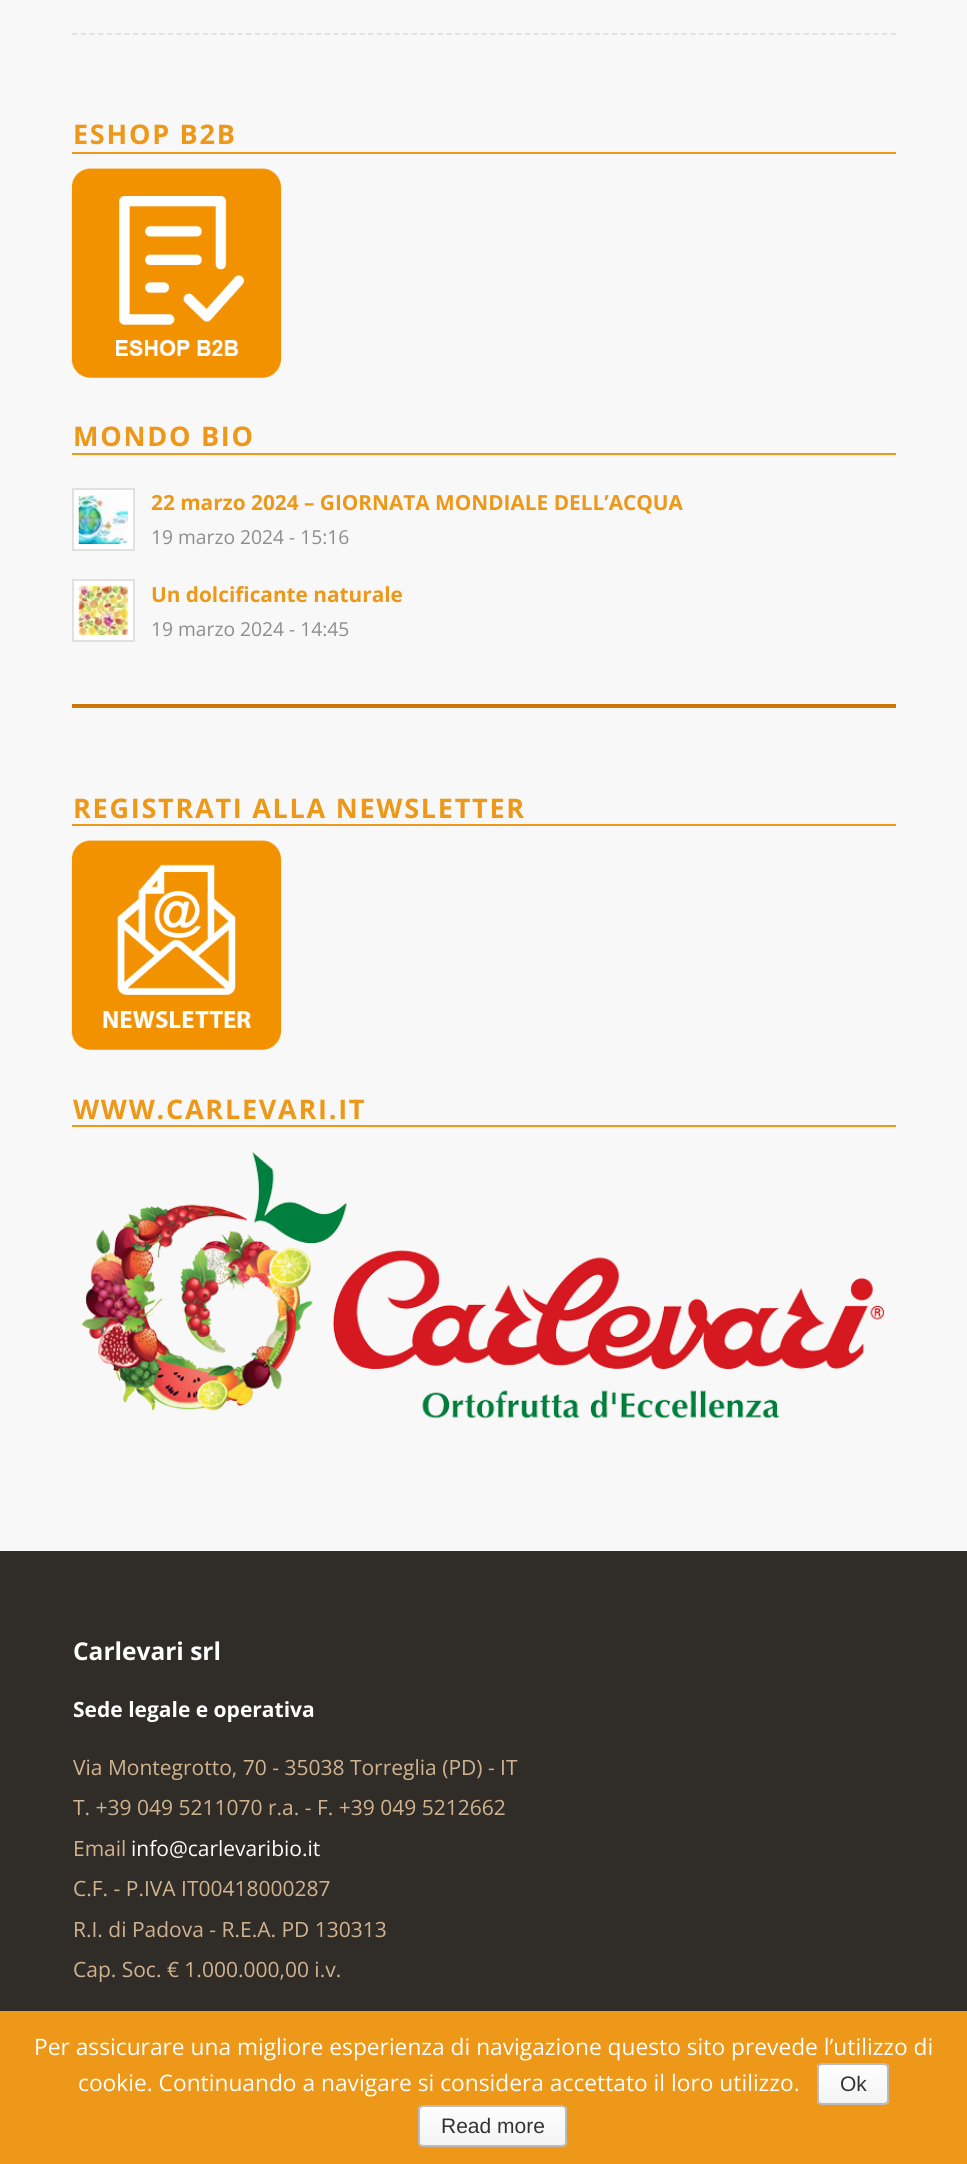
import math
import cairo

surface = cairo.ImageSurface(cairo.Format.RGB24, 967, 2164)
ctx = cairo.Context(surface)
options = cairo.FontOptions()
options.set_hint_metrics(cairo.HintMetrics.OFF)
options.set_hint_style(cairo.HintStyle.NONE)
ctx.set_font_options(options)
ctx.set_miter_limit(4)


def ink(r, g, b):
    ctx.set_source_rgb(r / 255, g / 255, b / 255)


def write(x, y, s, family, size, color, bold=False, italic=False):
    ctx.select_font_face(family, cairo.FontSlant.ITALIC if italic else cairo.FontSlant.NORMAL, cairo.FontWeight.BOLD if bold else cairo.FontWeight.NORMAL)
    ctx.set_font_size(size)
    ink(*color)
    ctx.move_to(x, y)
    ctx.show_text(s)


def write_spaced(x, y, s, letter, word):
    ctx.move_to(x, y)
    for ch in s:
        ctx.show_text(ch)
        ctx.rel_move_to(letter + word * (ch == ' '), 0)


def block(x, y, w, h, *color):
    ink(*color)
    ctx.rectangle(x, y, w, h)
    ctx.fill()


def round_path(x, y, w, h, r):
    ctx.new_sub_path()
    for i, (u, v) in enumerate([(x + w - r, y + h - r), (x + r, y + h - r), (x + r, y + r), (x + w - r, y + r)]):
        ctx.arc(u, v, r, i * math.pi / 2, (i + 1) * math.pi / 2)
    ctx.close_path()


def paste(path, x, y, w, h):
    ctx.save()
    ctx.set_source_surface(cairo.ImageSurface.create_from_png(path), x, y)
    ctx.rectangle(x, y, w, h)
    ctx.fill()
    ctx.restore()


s1 = dict(family="Open Sans", size=20.8, color=(237, 152, 24), bold=True)
s2 = dict(family="Open Sans", size=19.25, color=(141, 141, 141))
s3 = dict(family="Open Sans", size=24.5, color=(255, 255, 255), bold=True)
s4 = dict(family="Open Sans", size=21, color=(255, 255, 255), bold=True)
s5 = dict(family="Open Sans", size=21, color=(209, 179, 144))
s6 = dict(family="Open Sans", size=21, color=(255, 255, 255))
s7 = dict(family="Open Sans", size=22.75, color=(255, 255, 255))
s8 = dict(family="Liberation Sans", size=21, color=(51, 51, 51))

ink(248, 248, 248)
ctx.paint()
ctx.new_path()
ctx.move_to(72, 34)
ctx.line_to(896, 34)
ink(225, 225, 225)
ctx.set_line_width(1.8)
ctx.set_dash([5.25, 3.46])
ctx.stroke()
block(72, 152, 824, 2, 237, 152, 24)
ctx.select_font_face("Open Sans", cairo.FontSlant.NORMAL, cairo.FontWeight.BOLD)
ctx.set_font_size(27)
write_spaced(73, 144, "ESHOP B2B", 1.75, 0)
paste("pic1.png", 71, 168, 211, 210)
block(72, 453, 824, 2, 237, 152, 24)
write_spaced(73, 446, "MONDO BIO", 1.75, 0)
ink(255, 255, 255)
ctx.rectangle(73, 489, 61, 61)
ctx.fill_preserve()
ink(225, 225, 225)
ctx.set_line_width(2)
ctx.set_dash([])
ctx.stroke()
paste("pic2.png", 78, 495, 50, 49)
write(151, 510, "22 marzo 2024 – GIORNATA MONDIALE DELL’ACQUA", **s1)
write(151, 544, "19 marzo 2024 - 15:16", **s2)
ink(255, 255, 255)
ctx.rectangle(73, 580, 61, 61)
ctx.fill_preserve()
ink(225, 225, 225)
ctx.stroke()
paste("pic3.png", 78, 586, 50, 49)
write(151, 602, "Un dolcificante naturale", **s1)
write(151, 636, "19 marzo 2024 - 14:45", **s2)
block(72, 704, 824, 4, 203, 118, 6)
block(72, 824, 824, 2, 237, 152, 24)
ctx.select_font_face("Open Sans", cairo.FontSlant.NORMAL, cairo.FontWeight.BOLD)
ctx.set_font_size(27)
write_spaced(73, 818, "REGISTRATI ALLA NEWSLETTER", 1.75, 0)
paste("pic4.png", 71, 840, 211, 210)
block(72, 1125, 824, 2, 237, 152, 24)
write_spaced(73, 1119, "WWW.CARLEVARI.IT", 1.75, 0)
paste("pic5.png", 82, 1152, 803, 267)
block(0, 1551, 967, 460, 48, 44, 39)
write(73, 1660, "Carlevari srl", **s3)
write(73, 1717, "Sede legale e operativa", **s4)
write(73, 1775, "Via Montegrotto, 70 - 35038 Torreglia (PD) - IT", **s5)
write(73, 1815, "T. +39 049 5211070 r.a. - F. +39 049 5212662", **s5)
write(73, 1856, "Email", **s5)
write(131, 1856, "info@carlevaribio.it", **s6)
write(73, 1896, "C.F. - P.IVA IT00418000287", **s5)
write(73, 1937, "R.I. di Padova - R.E.A. PD 130313", **s5)
write(73, 1977, "Cap. Soc. € 1.000.000,00 i.v.", **s5)
block(0, 2011, 967, 153, 237, 152, 24)
write(34, 2055, "Per assicurare una migliore esperienza di navigazione questo sito prevede l’utilizzo di", **s7)
write(78, 2091, "cookie. Continuando a navigare si considera accettato il loro utilizzo.", **s7)
ctx.save()
round_path(817, 2063, 72, 42, 5)
ctx.clip()
gradient = cairo.LinearGradient(853, 2065, 853, 2104)
gradient.add_color_stop_rgba(0, 0.996, 0.996, 0.996, 1)
gradient.add_color_stop_rgba(1, 0.957, 0.957, 0.957, 1)
ctx.set_source(gradient)
ctx.rectangle(817, 2065, 72, 39)
ctx.fill()
ctx.restore()
round_path(818, 2064, 70, 40, 4)
ink(187, 187, 187)
ctx.stroke()
write(840, 2091, "Ok", **s8)
ctx.save()
round_path(418, 2105, 149, 42, 5)
ctx.clip()
gradient = cairo.LinearGradient(493, 2107, 493, 2146)
gradient.add_color_stop_rgba(0, 0.996, 0.996, 0.996, 1)
gradient.add_color_stop_rgba(1, 0.957, 0.957, 0.957, 1)
ctx.set_source(gradient)
ctx.rectangle(418, 2107, 149, 39)
ctx.fill()
ctx.restore()
round_path(419, 2106, 147, 40, 4)
ink(187, 187, 187)
ctx.stroke()
write(441, 2133, "Read more", **s8)
surface.write_to_png("screenshot.png")
